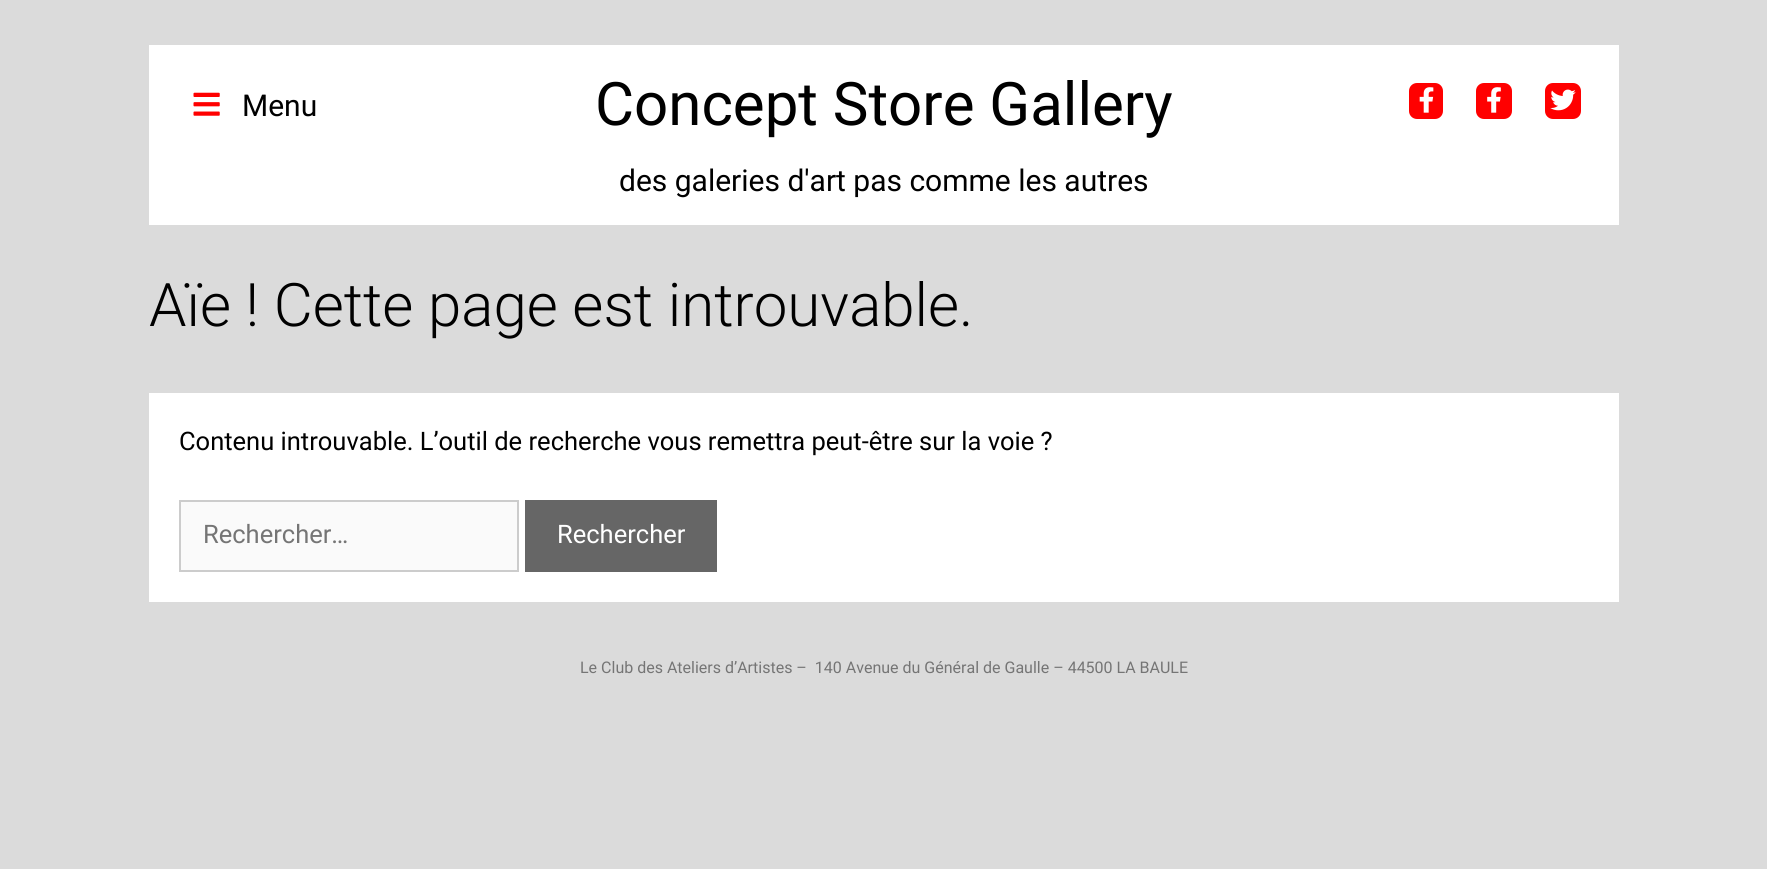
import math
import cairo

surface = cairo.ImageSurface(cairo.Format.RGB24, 1767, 869)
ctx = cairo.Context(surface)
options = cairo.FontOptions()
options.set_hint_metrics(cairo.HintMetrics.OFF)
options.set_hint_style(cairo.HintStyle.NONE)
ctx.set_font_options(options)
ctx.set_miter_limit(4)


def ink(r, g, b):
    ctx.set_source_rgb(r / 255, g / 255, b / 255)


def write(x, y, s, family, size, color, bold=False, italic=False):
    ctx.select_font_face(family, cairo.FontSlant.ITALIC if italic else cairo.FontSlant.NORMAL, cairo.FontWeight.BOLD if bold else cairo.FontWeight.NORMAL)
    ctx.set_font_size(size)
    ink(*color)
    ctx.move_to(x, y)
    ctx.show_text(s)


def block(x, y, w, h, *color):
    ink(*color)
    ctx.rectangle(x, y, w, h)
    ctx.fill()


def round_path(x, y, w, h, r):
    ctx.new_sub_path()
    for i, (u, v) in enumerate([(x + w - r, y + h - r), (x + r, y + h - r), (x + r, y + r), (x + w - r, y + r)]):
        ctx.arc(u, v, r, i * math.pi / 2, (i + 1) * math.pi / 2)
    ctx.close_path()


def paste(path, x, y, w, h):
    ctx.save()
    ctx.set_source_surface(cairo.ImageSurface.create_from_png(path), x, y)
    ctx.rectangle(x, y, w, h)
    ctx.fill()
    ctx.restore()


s1 = dict(family="Roboto", size=30, color=(0, 0, 0))
s2 = dict(family="Roboto", size=60, color=(0, 0, 0))
s3 = dict(family="Roboto Light", size=60, color=(0, 0, 0))
s4 = dict(family="Roboto", size=25.5, color=(0, 0, 0))
s5 = dict(family="Roboto", size=25.5, color=(117, 117, 117))
s6 = dict(family="Roboto", size=25.5, color=(255, 255, 255))
s7 = dict(family="Roboto", size=16, color=(117, 117, 117))

ink(219, 219, 219)
ctx.paint()
block(149, 45, 1470, 180, 255, 255, 255)
paste("pic1.png", 193, 92, 27, 24)
write(242, 116, "Menu", **s1)
write(595, 125, "Concept Store Gallery", **s2)
write(619, 191, "des galeries d'art pas comme les autres", **s1)
ink(255, 0, 0)
round_path(1409, 83, 34, 36, 8)
ctx.fill()
paste("pic2.png", 1419, 87, 15, 26)
round_path(1476, 83, 36, 36, 8)
ctx.fill()
paste("pic3.png", 1487, 87, 14, 26)
round_path(1545, 83, 36, 36, 8)
ctx.fill()
paste("pic4.png", 1550, 89, 26, 22)
write(149, 326, "Aïe ! Cette page est introuvable.", **s3)
block(149, 393, 1470, 209, 255, 255, 255)
write(179, 450, "Contenu introuvable. L’outil de recherche vous remettra peut-être sur la voie ?", **s4)
ink(250, 250, 250)
ctx.rectangle(180, 501, 338, 70)
ctx.fill_preserve()
ink(204, 204, 204)
ctx.stroke()
write(203, 543, "Rechercher…", **s5)
block(525, 500, 192, 72, 102, 102, 102)
write(557, 543, "Rechercher", **s6)
write(580, 673, "Le Club des Ateliers d’Artistes –  140 Avenue du Général de Gaulle – 44500 LA BAULE", **s7)
surface.write_to_png("screenshot.png")
